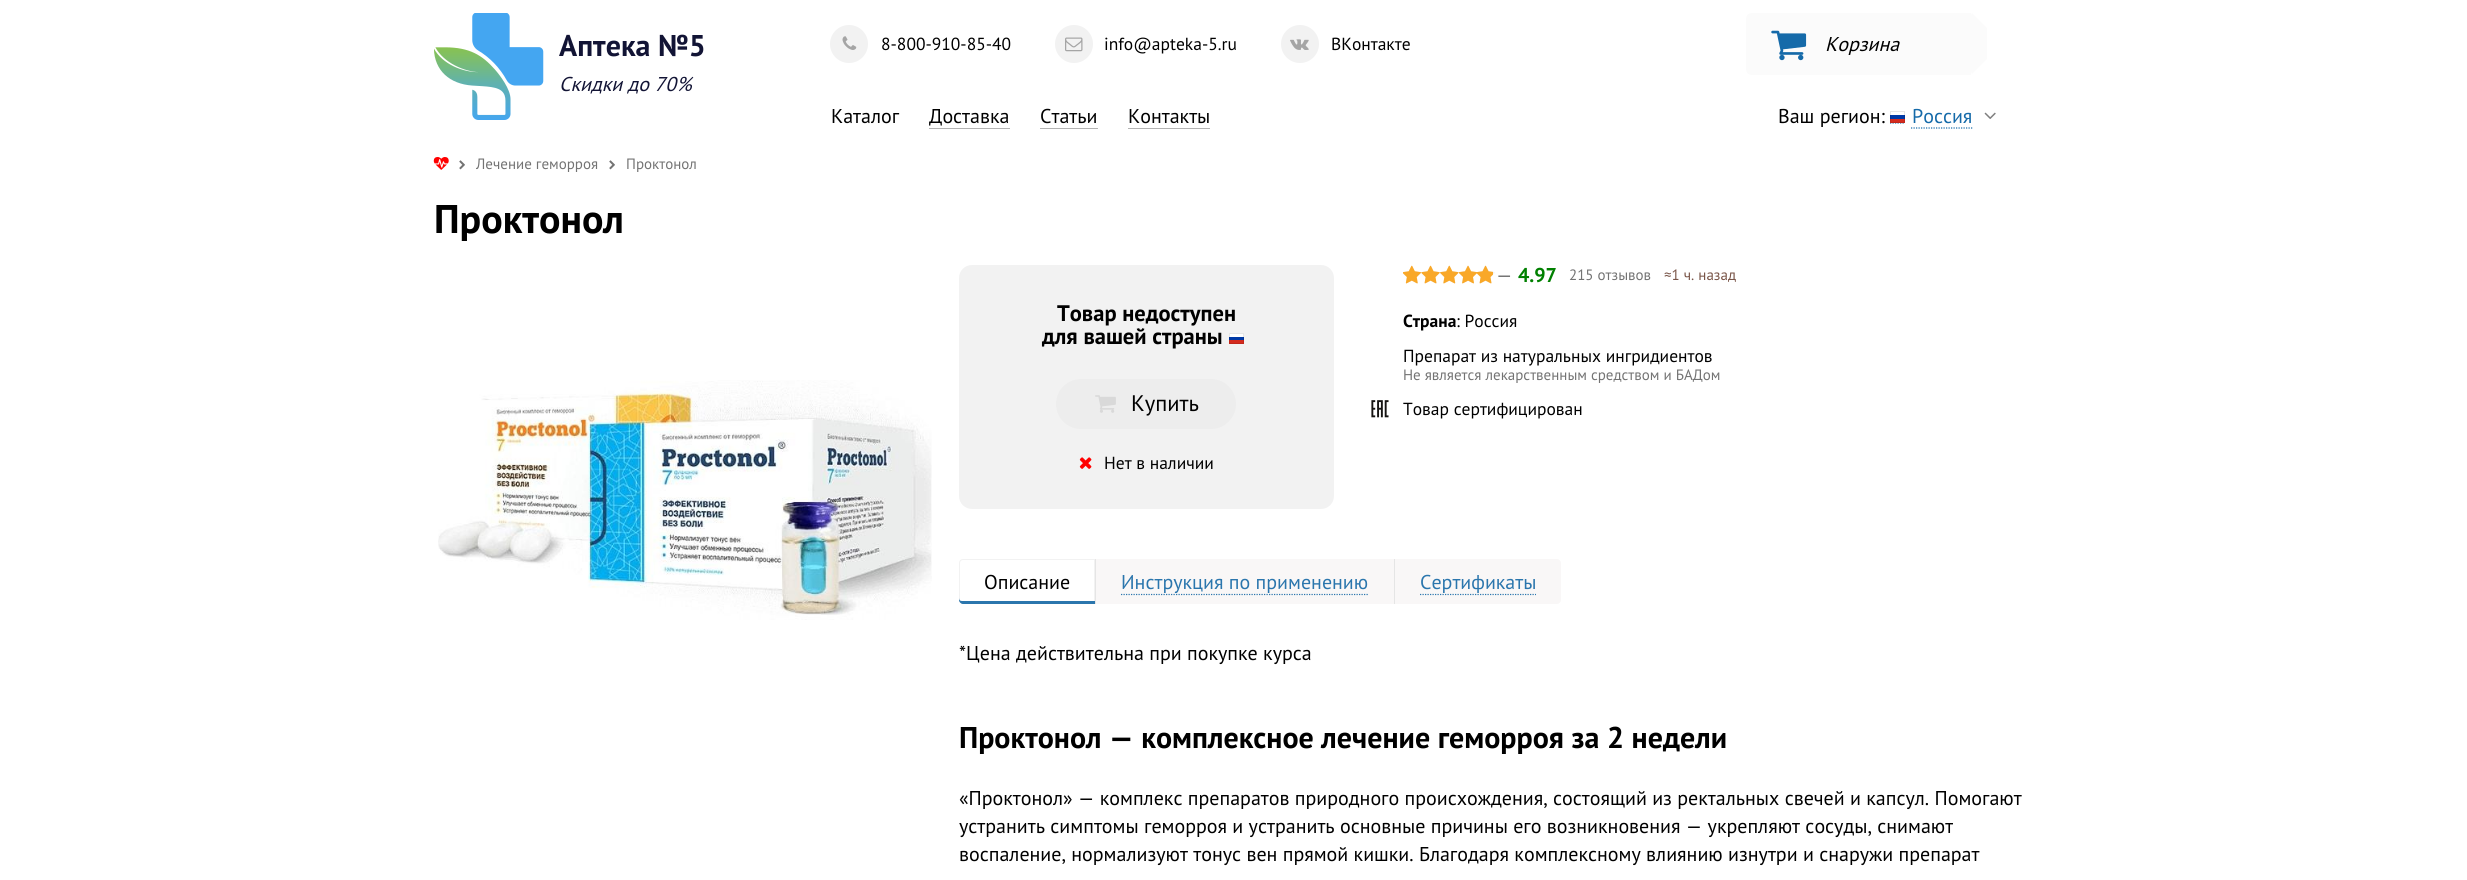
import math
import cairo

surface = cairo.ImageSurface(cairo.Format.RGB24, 2467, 880)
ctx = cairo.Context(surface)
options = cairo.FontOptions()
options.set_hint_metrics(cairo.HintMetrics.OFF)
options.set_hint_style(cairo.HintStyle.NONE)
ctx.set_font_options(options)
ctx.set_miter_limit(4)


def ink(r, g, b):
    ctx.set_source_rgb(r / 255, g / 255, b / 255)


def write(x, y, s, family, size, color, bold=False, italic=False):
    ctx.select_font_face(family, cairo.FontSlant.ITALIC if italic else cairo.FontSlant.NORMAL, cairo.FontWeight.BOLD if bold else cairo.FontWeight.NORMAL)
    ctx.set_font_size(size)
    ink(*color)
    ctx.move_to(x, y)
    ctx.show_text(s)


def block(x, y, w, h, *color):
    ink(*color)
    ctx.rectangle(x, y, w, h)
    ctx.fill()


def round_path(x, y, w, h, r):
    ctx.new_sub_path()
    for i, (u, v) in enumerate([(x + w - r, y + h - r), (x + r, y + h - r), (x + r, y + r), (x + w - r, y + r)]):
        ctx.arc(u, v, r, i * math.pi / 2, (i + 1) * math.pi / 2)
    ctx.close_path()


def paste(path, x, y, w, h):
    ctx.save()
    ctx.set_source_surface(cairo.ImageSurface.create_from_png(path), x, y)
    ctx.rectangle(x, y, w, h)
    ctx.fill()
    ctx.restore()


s1 = dict(family="PT Sans", size=30, color=(18, 20, 53), bold=True)
s2 = dict(family="PT Sans", size=20, color=(18, 20, 53), italic=True)
s3 = dict(family="PT Sans", size=17.5, color=(0, 0, 0))
s4 = dict(family="PT Sans", size=20, color=(0, 0, 0), italic=True)
s5 = dict(family="PT Sans", size=20, color=(0, 0, 0))
s6 = dict(family="PT Sans", size=20, color=(21, 106, 169))
s7 = dict(family="PT Sans", size=15, color=(115, 115, 115))
s8 = dict(family="PT Sans", size=40, color=(0, 0, 0), bold=True)
s9 = dict(family="PT Sans", size=22.5, color=(0, 0, 0), bold=True)
s10 = dict(family="PT Sans", size=22.5, color=(0, 0, 0))
s11 = dict(family="PT Sans", size=20, color=(115, 115, 115))
s12 = dict(family="PT Sans", size=20, color=(0, 128, 0), bold=True)
s13 = dict(family="PT Sans", size=15, color=(121, 85, 72))
s14 = dict(family="PT Sans", size=17.5, color=(0, 0, 0), bold=True)
s15 = dict(family="PT Sans", size=20, color=(43, 118, 173))
s16 = dict(family="PT Sans", size=30, color=(0, 0, 0), bold=True)

ink(255, 255, 255)
ctx.paint()
paste("pic1.png", 434, 13, 110, 107)
write(559, 56, "Аптека №5", **s1)
write(559, 91, "Скидки до 70%", **s2)
ink(242, 242, 242)
ctx.new_path()
ctx.arc(849, 44, 19, 0, 2 * math.pi)
ctx.fill()
paste("pic2.png", 842, 36, 15, 14)
write(881, 50, "8-800-910-85-40", **s3)
ink(242, 242, 242)
ctx.new_path()
ctx.arc(1074, 44, 19, 0, 2 * math.pi)
ctx.fill()
paste("pic3.png", 1065, 37, 18, 15)
write(1104, 50, "info@apteka-5.ru", **s3)
ink(242, 242, 242)
ctx.new_path()
ctx.arc(1300, 44, 19, 0, 2 * math.pi)
ctx.fill()
paste("pic4.png", 1290, 39, 19, 11)
write(1331, 50, "ВКонтакте", **s3)
ink(251, 251, 251)
ctx.new_path()
ctx.move_to(1752, 13)
ctx.line_to(1971, 13)
ctx.line_to(1971, 75)
ctx.line_to(1752, 75)
ctx.curve_to(1748.5, 75, 1746, 72.5, 1746, 69)
ctx.line_to(1746, 19)
ctx.curve_to(1746, 15.5, 1748.5, 13, 1752, 13)
ctx.close_path()
ctx.fill()
paste("pic5.png", 1771, 30, 36, 31)
write(1825, 51, "Корзина", **s4)
ink(251, 251, 251)
ctx.new_path()
ctx.move_to(1971, 15)
ctx.line_to(1972, 13)
ctx.line_to(1987, 28)
ctx.line_to(1987, 59)
ctx.line_to(1972, 74)
ctx.line_to(1971, 72)
ctx.close_path()
ctx.fill()
write(831, 123, "Каталог", **s5)
block(929, 128, 81, 1, 179, 179, 179)
write(929, 123, "Доставка", **s5)
block(1040, 128, 58, 1, 179, 179, 179)
write(1040, 123, "Статьи", **s5)
block(1128, 128, 82, 1, 179, 179, 179)
write(1128, 123, "Контакты", **s5)
write(1778, 123, "Ваш регион:", **s5)
ctx.new_path()
ctx.move_to(1890, 123)
ctx.line_to(1905, 123)
ink(21, 106, 169)
ctx.set_line_width(1.2)
ctx.set_dash([1.25, 1.25])
ctx.stroke()
ctx.new_path()
ctx.move_to(1911, 128)
ctx.line_to(1972.5, 128)
ctx.stroke()
block(1890, 115, 15, 4, 0, 57, 166)
block(1890, 119, 15, 4, 213, 43, 30)
ctx.rectangle(1890.5, 111.5, 14, 11)
ctx.set_source_rgba(0, 0, 0, 0.1)
ctx.set_line_width(1)
ctx.set_dash([])
ctx.stroke()
write(1912, 123, "Россия", **s6)
paste("pic6.png", 1984, 112, 12, 7)
paste("pic7.png", 433, 157, 16, 13)
paste("pic8.png", 459, 160, 6, 10)
write(476, 169, "Лечение геморроя", **s7)
paste("pic8.png", 609, 160, 6, 10)
write(626, 169, "Проктонол", **s7)
write(434, 233, "Проктонол", **s8)
paste("pic9.png", 438, 380, 494, 240)
ink(242, 242, 242)
round_path(959, 265, 375, 244, 13)
ctx.fill()
write(1057, 321, "Товар недоступен", **s9)
write(1042, 344, "для вашей страны", **s9)
block(1229, 333, 15, 4, 255, 255, 255)
block(1229, 337, 15, 3, 0, 57, 166)
block(1229, 340, 15, 4, 213, 43, 30)
ctx.rectangle(1229.5, 333.5, 14, 10)
ctx.set_source_rgba(0, 0, 0, 0.1)
ctx.stroke()
ink(237, 237, 237)
round_path(1056, 379, 180, 50, 25)
ctx.fill()
paste("pic10.png", 1095, 395, 21, 18)
write(1131, 411, "Купить", **s10)
paste("pic11.png", 1079, 457, 13, 12)
write(1104, 469, "Нет в наличии", **s3)
paste("pic17.png", 1403, 266, 18, 18)
paste("pic12.png", 1403, 265, 18, 19)
paste("pic18.png", 1421, 266, 19, 17)
paste("pic13.png", 1421, 265, 19, 19)
paste("pic19.png", 1440, 266, 19, 18)
paste("pic14.png", 1440, 265, 19, 19)
paste("pic20.png", 1459, 266, 18, 17)
paste("pic21.png", 1477, 266, 18, 17)
paste("pic15.png", 1458, 265, 20, 19)
paste("pic16.png", 1476, 265, 17, 19)
write(1496, 282, "—", **s11)
write(1518, 282, "4.97", **s12)
write(1569, 280, "215 отзывов", **s7)
write(1664, 280, "≈1 ч. назад", **s13)
write(1403, 327, "Страна", **s14)
write(1456, 327, ": Россия", **s3)
write(1403, 362, "Препарат из натуральных ингридиентов", **s3)
write(1403, 380, "Не является лекарственным средством и БАДом", **s7)
paste("pic22.png", 1371, 400, 18, 18)
write(1403, 415, "Товар сертифицирован", **s3)
ctx.new_path()
ctx.move_to(963, 559.5)
ctx.line_to(1094.5, 559.5)
ctx.line_to(1094.5, 603.5)
ctx.line_to(963, 603.5)
ctx.curve_to(961, 603.5, 959.5, 602, 959.5, 600)
ctx.line_to(959.5, 563)
ctx.curve_to(959.5, 561, 961, 559.5, 963, 559.5)
ctx.close_path()
ink(242, 242, 242)
ctx.stroke()
ink(43, 118, 173)
ctx.new_path()
ctx.move_to(959, 598)
ctx.line_to(959, 600)
ctx.curve_to(959, 602, 961, 604, 963, 604)
ctx.line_to(1095, 604)
ctx.line_to(1095, 601)
ctx.line_to(962, 601)
ctx.curve_to(960, 601, 959, 600, 959, 598)
ctx.close_path()
ctx.fill()
block(1095, 559, 1, 45, 229, 229, 229)
write(984, 589, "Описание", **s5)
block(1096, 559, 298, 45, 249, 247, 247)
block(1394, 559, 1, 45, 229, 229, 229)
ctx.new_path()
ctx.move_to(1121, 594.5)
ctx.line_to(1229, 594.5)
ink(43, 118, 173)
ctx.set_line_width(1.2)
ctx.set_dash([1.25, 1.25])
ctx.stroke()
ctx.new_path()
ctx.move_to(1229, 594.5)
ctx.line_to(1369, 594.5)
ctx.stroke()
write(1121, 589, "Инструкция по применению", **s15)
ink(249, 247, 247)
ctx.new_path()
ctx.move_to(1395, 559)
ctx.line_to(1557, 559)
ctx.curve_to(1559, 559, 1561, 561, 1561, 563)
ctx.line_to(1561, 600)
ctx.curve_to(1561, 602, 1559, 604, 1557, 604)
ctx.line_to(1395, 604)
ctx.close_path()
ctx.fill()
write(1420, 589, "Сертификаты", **s15)
ctx.new_path()
ctx.move_to(1420, 594.5)
ctx.line_to(1536, 594.5)
ctx.stroke()
write(959, 660, "*Цена действительна при покупке курса", **s5)
write(959, 748, "Проктонол — комплексное лечение геморроя за 2 недели", **s16)
write(959, 805, "«Проктонол» — комплекс препаратов природного происхождения, состоящий из ректальных свечей и капсул. Помогают", **s5)
write(959, 833, "устранить симптомы геморроя и устранить основные причины его возникновения — укрепляют сосуды, снимают", **s5)
write(959, 861, "воспаление, нормализуют тонус вен прямой кишки. Благодаря комплексному влиянию изнутри и снаружи препарат", **s5)
surface.write_to_png("screenshot.png")
